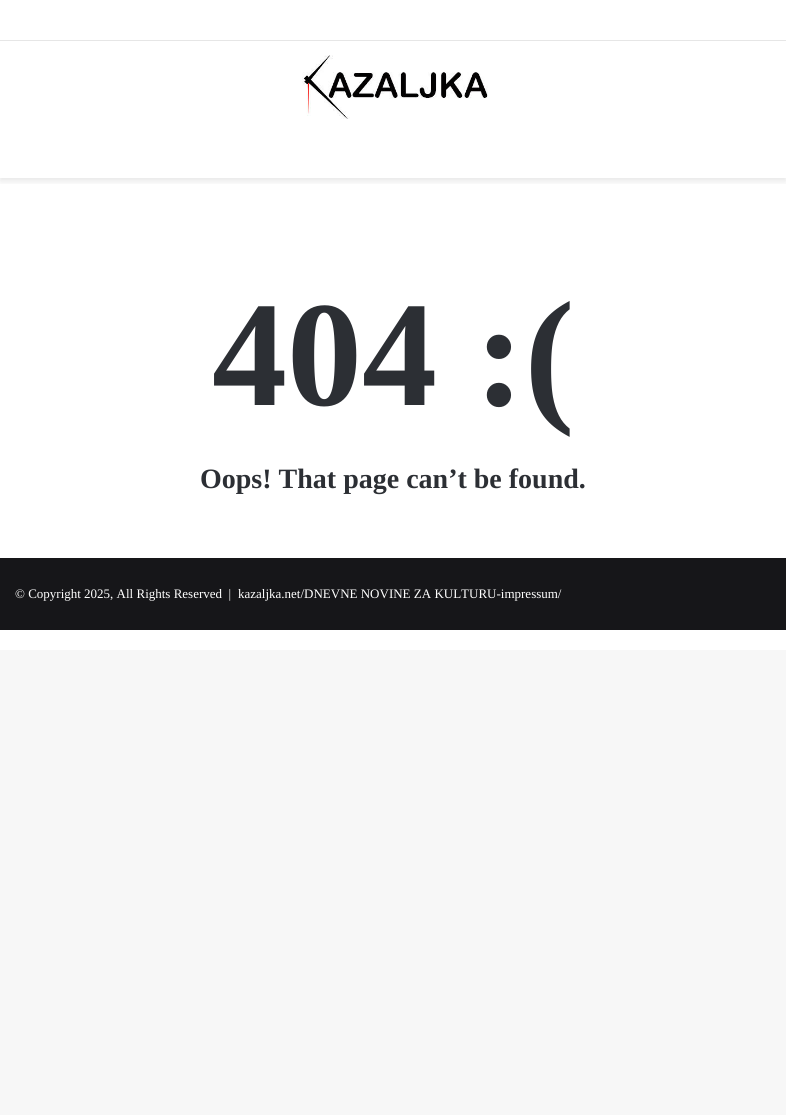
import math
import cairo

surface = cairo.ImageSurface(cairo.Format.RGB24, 786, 1115)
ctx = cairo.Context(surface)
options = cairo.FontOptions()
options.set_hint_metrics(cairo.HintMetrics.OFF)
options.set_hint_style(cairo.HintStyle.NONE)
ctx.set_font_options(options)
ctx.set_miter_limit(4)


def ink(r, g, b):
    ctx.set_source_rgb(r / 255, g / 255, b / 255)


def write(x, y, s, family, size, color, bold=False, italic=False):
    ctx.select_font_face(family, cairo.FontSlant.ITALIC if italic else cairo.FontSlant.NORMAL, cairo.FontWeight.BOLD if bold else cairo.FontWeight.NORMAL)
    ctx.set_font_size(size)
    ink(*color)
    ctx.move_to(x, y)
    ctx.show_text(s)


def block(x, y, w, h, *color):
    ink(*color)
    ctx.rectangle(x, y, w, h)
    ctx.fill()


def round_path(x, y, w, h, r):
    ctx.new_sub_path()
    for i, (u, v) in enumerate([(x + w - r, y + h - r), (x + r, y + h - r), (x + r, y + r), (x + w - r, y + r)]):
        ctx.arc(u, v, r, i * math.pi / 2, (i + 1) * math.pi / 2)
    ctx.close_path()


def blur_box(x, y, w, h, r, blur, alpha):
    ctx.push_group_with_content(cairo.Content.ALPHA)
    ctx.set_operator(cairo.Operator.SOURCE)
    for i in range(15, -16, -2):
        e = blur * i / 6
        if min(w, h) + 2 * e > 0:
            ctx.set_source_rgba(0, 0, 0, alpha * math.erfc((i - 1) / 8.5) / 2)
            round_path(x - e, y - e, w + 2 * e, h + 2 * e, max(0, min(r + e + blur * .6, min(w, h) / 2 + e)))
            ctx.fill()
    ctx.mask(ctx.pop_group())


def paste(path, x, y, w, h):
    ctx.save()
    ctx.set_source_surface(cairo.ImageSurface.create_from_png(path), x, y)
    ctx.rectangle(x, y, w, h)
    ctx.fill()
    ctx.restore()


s1 = dict(family="Liberation Serif", size=150, color=(44, 47, 52), bold=True)
s2 = dict(family="Liberation Serif", size=28, color=(44, 47, 52), bold=True)
s3 = dict(family="Liberation Serif", size=13, color=(255, 255, 255))

ink(247, 247, 247)
ctx.paint()
block(0, 41, 786, 609, 255, 255, 255)
ctx.save()
ctx.rectangle(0, 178, 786, 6)
ctx.clip()
ink(0, 0, 0)
blur_box(0, 44, 786, 137, 0, 3.5, 0.1)
ctx.restore()
block(0, 0, 786, 40, 255, 255, 255)
block(0, 40, 786, 1, 230, 230, 230)
paste("pic1.png", 302, 55, 186, 64)
write(212, 405, "404 :(", **s1)
write(200, 488, "Oops! That page can’t be found.", **s2)
block(0, 558, 786, 72, 22, 22, 25)
write(15, 598, "© Copyright 2025, All Rights Reserved  |", **s3)
write(238, 598, "kazaljka.net/DNEVNE NOVINE ZA KULTURU-impressum/", **s3)
surface.write_to_png("screenshot.png")
